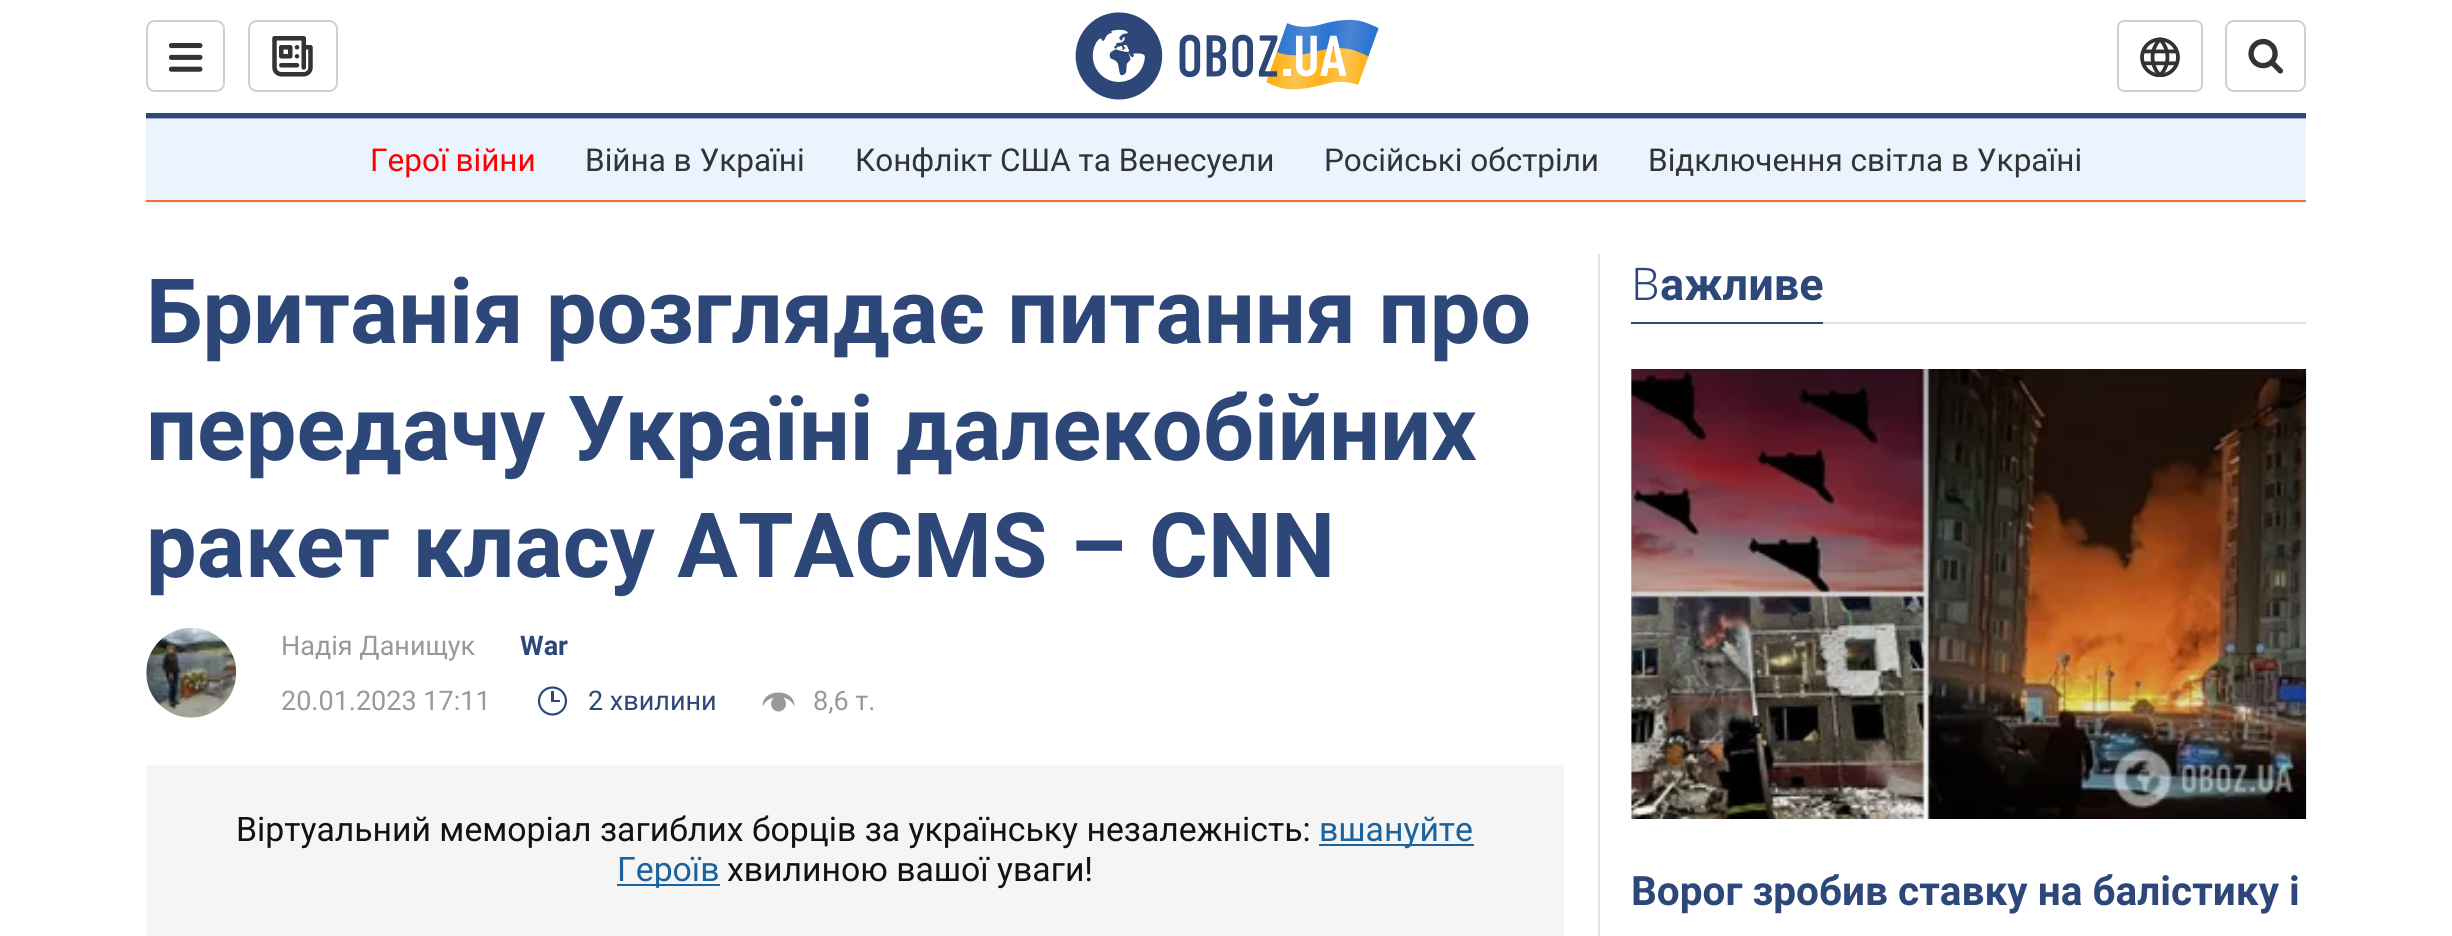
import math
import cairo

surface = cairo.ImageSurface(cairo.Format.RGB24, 2452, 936)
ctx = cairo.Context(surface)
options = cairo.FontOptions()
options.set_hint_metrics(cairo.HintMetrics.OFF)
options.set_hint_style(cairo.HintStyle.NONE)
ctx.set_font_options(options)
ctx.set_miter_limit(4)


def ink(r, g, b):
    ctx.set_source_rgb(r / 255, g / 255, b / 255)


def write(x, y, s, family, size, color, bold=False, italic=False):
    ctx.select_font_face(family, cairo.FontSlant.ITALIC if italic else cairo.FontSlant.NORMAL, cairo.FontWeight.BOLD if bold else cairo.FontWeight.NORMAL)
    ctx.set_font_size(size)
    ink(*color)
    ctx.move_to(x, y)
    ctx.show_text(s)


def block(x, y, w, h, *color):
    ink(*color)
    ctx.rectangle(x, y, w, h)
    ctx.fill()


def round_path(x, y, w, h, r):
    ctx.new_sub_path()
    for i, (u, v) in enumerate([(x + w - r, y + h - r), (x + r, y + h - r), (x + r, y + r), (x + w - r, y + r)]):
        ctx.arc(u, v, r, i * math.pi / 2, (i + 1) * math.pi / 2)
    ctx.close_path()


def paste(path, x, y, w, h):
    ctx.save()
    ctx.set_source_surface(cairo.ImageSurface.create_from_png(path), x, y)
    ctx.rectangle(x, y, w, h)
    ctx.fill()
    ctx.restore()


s1 = dict(family="Roboto", size=31.5, color=(255, 0, 0))
s2 = dict(family="Roboto", size=31.5, color=(51, 51, 51))
s3 = dict(family="Roboto", size=90, color=(45, 72, 120), bold=True)
s4 = dict(family="Roboto", size=27, color=(153, 153, 153))
s5 = dict(family="Roboto", size=27, color=(45, 72, 120), bold=True)
s6 = dict(family="Roboto", size=27, color=(45, 72, 120))
s7 = dict(family="Roboto", size=33.75, color=(18, 18, 18))
s8 = dict(family="Roboto", size=33.75, color=(28, 98, 156))
s9 = dict(family="Noto Sans Light", size=45, color=(45, 72, 120))
s10 = dict(family="Roboto", size=45, color=(45, 72, 120), bold=True)
s11 = dict(family="Roboto", size=40.5, color=(45, 72, 120), bold=True)

ink(255, 255, 255)
ctx.paint()
block(146, 113, 2160, 5, 45, 72, 120)
round_path(147, 21, 77, 70, 8)
ink(208, 208, 208)
ctx.stroke()
paste("pic1.png", 169, 43, 34, 29)
round_path(249, 21, 88, 70, 8)
ctx.stroke()
paste("pic2.png", 272, 36, 41, 41)
paste("pic3.png", 1075, 12, 304, 88)
round_path(2118, 21, 84, 70, 6)
ctx.stroke()
paste("pic4.png", 2140, 37, 40, 40)
round_path(2226, 21, 79, 70, 8)
ctx.stroke()
ink(255, 255, 255)
round_path(2228, 23, 76, 67, 7)
ctx.fill()
paste("pic5.png", 2248, 38, 36, 36)
block(146, 119, 2160, 84, 234, 244, 255)
block(146, 118, 2160, 1, 158, 175, 201)
block(146, 200, 2160, 2, 241, 113, 50)
write(370, 171, "Герої війни", **s1)
write(585, 171, "Війна в Україні", **s2)
write(855, 171, "Конфлікт США та Венесуели", **s2)
write(1324, 171, "Російські обстріли", **s2)
write(1648, 171, "Відключення світла в Україні", **s2)
write(146, 343, "Британія розглядає питання про", **s3)
write(146, 460, "передачу Україні далекобійних", **s3)
write(146, 577, "ракет класу ATACMS – CNN", **s3)
paste("pic6.png", 146, 628, 91, 90)
write(281, 655, "Надія Данищук", **s4)
write(520, 655, "War", **s5)
write(281, 710, "20.01.2023 17:11", **s4)
ctx.new_path()
ctx.arc(552.5, 701, 13.5, 0, 2 * math.pi)
ink(45, 72, 120)
ctx.set_line_width(2.2)
ctx.stroke()
block(551, 700, 9, 2, 45, 72, 120)
block(551, 691, 3, 11, 45, 72, 120)
write(588, 710, "2 хвилини", **s6)
paste("pic7.png", 762, 692, 33, 20)
write(813, 710, "8,6 т.", **s4)
block(146, 765, 1418, 171, 245, 245, 245)
write(236, 841, "Віртуальний меморіал загиблих борців за українську незалежність:", **s7)
block(1319, 844, 155, 2, 28, 98, 156)
write(1319, 841, "вшануйте", **s8)
block(617, 884, 103, 2, 28, 98, 156)
write(617, 881, "Героїв", **s8)
write(727, 881, "хвилиною вашої уваги!", **s7)
block(1598, 254, 2, 682, 226, 226, 226)
block(1823, 322, 483, 2, 226, 226, 226)
write(1631, 300, "В", **s9)
write(1660, 300, "ажливе", **s10)
block(1631, 322, 192, 2, 45, 72, 120)
paste("pic8.png", 1631, 369, 676, 450)
gradient = cairo.LinearGradient(1969, 369, 1969, 830)
gradient.add_color_stop_rgba(0, 0, 0, 0, 0.3)
gradient.add_color_stop_rgba(1, 0, 0, 0, 0)
ctx.set_source(gradient)
ctx.rectangle(1631, 369, 675, 428)
ctx.fill()
write(1631, 905, "Ворог зробив ставку на балістику і", **s11)
surface.write_to_png("screenshot.png")
